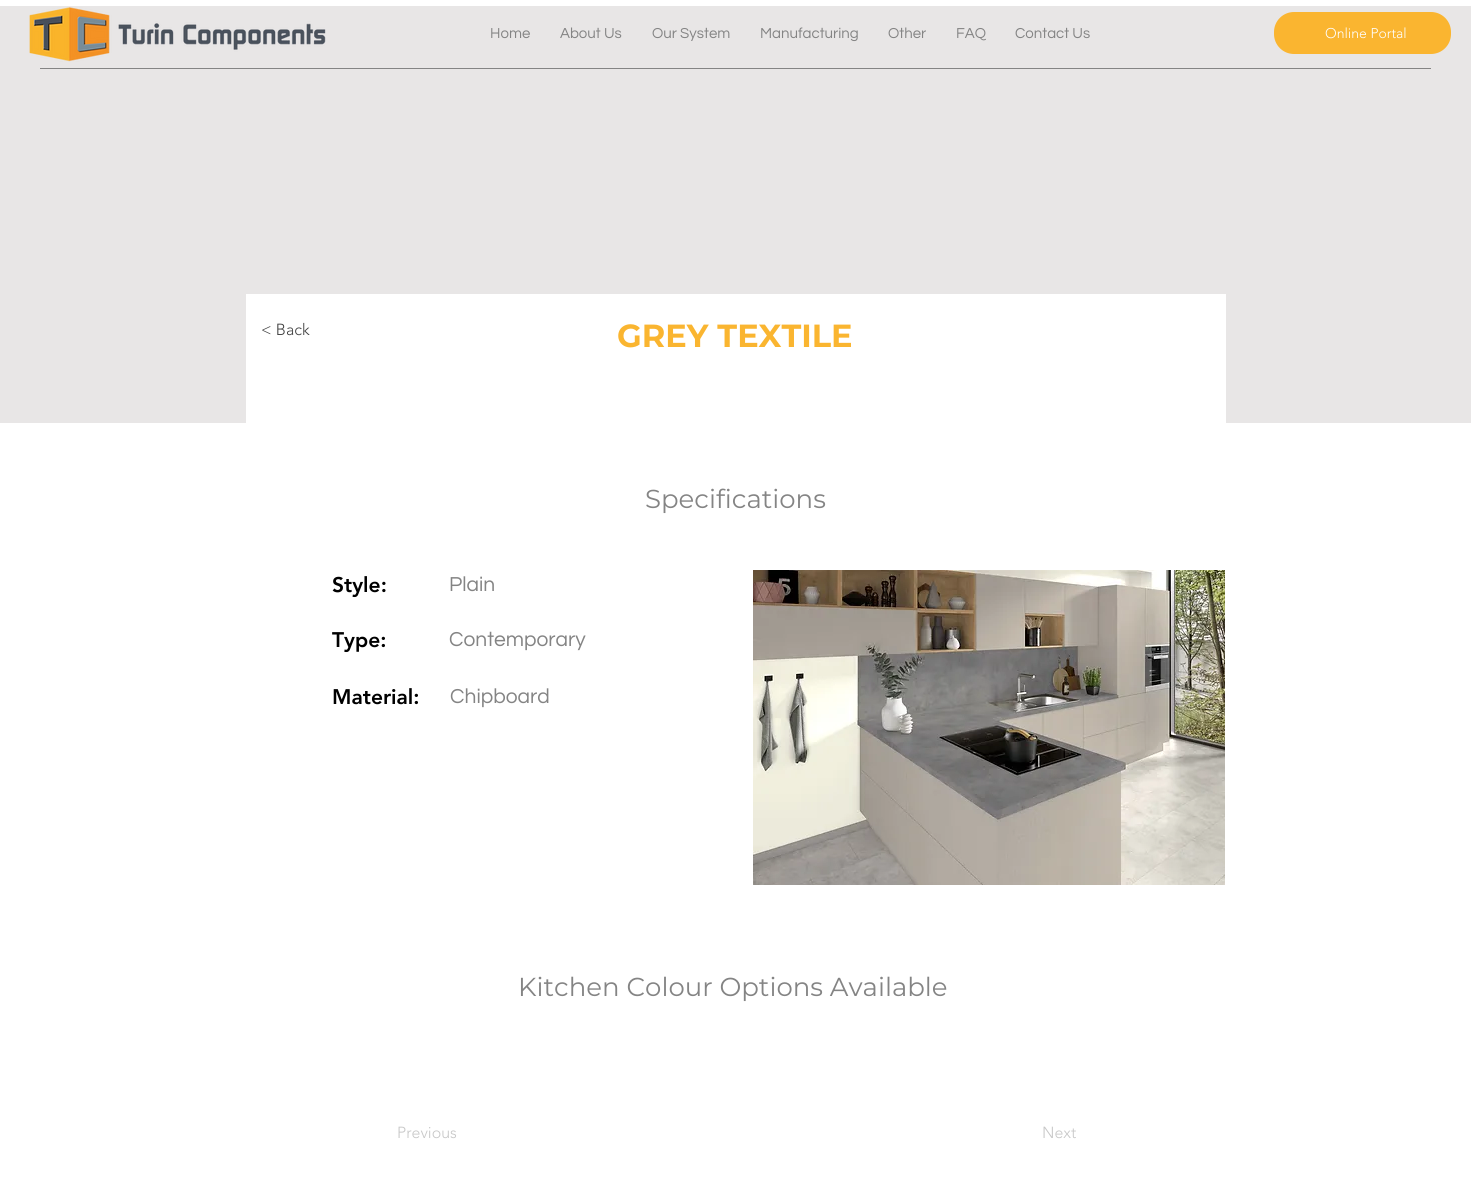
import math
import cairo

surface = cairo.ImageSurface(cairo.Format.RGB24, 1471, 1190)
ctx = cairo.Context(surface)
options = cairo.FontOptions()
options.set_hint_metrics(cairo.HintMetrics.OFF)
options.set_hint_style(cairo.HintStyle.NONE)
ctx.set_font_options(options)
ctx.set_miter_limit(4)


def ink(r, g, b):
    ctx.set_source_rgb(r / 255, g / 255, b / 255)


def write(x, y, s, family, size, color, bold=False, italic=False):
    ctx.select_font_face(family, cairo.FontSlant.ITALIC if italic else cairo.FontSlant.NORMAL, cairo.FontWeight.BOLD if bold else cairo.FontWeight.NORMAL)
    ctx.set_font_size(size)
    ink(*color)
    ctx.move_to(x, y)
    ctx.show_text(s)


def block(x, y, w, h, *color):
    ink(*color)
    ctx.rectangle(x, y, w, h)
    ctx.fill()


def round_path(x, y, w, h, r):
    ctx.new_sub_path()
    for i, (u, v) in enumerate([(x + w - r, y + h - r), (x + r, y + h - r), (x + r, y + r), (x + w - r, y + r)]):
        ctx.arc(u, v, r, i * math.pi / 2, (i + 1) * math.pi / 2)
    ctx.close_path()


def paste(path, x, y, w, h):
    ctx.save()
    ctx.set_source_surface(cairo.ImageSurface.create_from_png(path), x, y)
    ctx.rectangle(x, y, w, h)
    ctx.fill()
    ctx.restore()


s1 = dict(family="Questrial", size=15, color=(132, 132, 132))
s2 = dict(family="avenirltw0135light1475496 Light", size=14, color=(255, 255, 255))
s3 = dict(family="avenirltw0135light1475496 Light", size=16, color=(65, 65, 65))
s4 = dict(family="Montserrat", size=32, color=(250, 181, 48), bold=True)
s5 = dict(family="Montserrat", size=26, color=(132, 132, 132))
s6 = dict(family="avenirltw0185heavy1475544 Black", size=21, color=(0, 0, 0))
s7 = dict(family="Questrial", size=21, color=(132, 132, 132))
s8 = dict(family="avenirltw0135light1475496 Light", size=16, color=(199, 199, 199))

ink(255, 255, 255)
ctx.paint()
block(0, 6, 1471, 417, 232, 230, 230)
paste("pic1.png", 29, 7, 297, 55)
write(490, 38, "Home", **s1)
write(560, 38, "About Us", **s1)
write(652, 38, "Our System", **s1)
write(760, 38, "Manufacturing", **s1)
write(888, 38, "Other", **s1)
write(956, 38, "FAQ", **s1)
write(1015, 38, "Contact Us", **s1)
block(40, 68, 1391, 1, 132, 132, 132)
ink(250, 181, 48)
round_path(1274, 12, 177, 42, 20)
ctx.fill()
write(1325, 38, "Online Portal", **s2)
block(246, 294, 980, 129, 255, 255, 255)
write(261, 335, "< Back", **s3)
write(617, 347, "GREY TEXTILE", **s4)
write(645, 508, "Specifications", **s5)
write(332, 592, "Style:", **s6)
write(449, 591, "Plain", **s7)
write(332, 647, "Type:", **s6)
write(449, 646, "Contemporary", **s7)
write(332, 704, "Material:", **s6)
write(450, 703, "Chipboard", **s7)
paste("pic2.png", 753, 570, 472, 315)
write(518, 996, "Kitchen Colour Options Available", **s5)
write(397, 1138, "Previous", **s8)
write(1042, 1138, "Next", **s8)
surface.write_to_png("screenshot.png")
